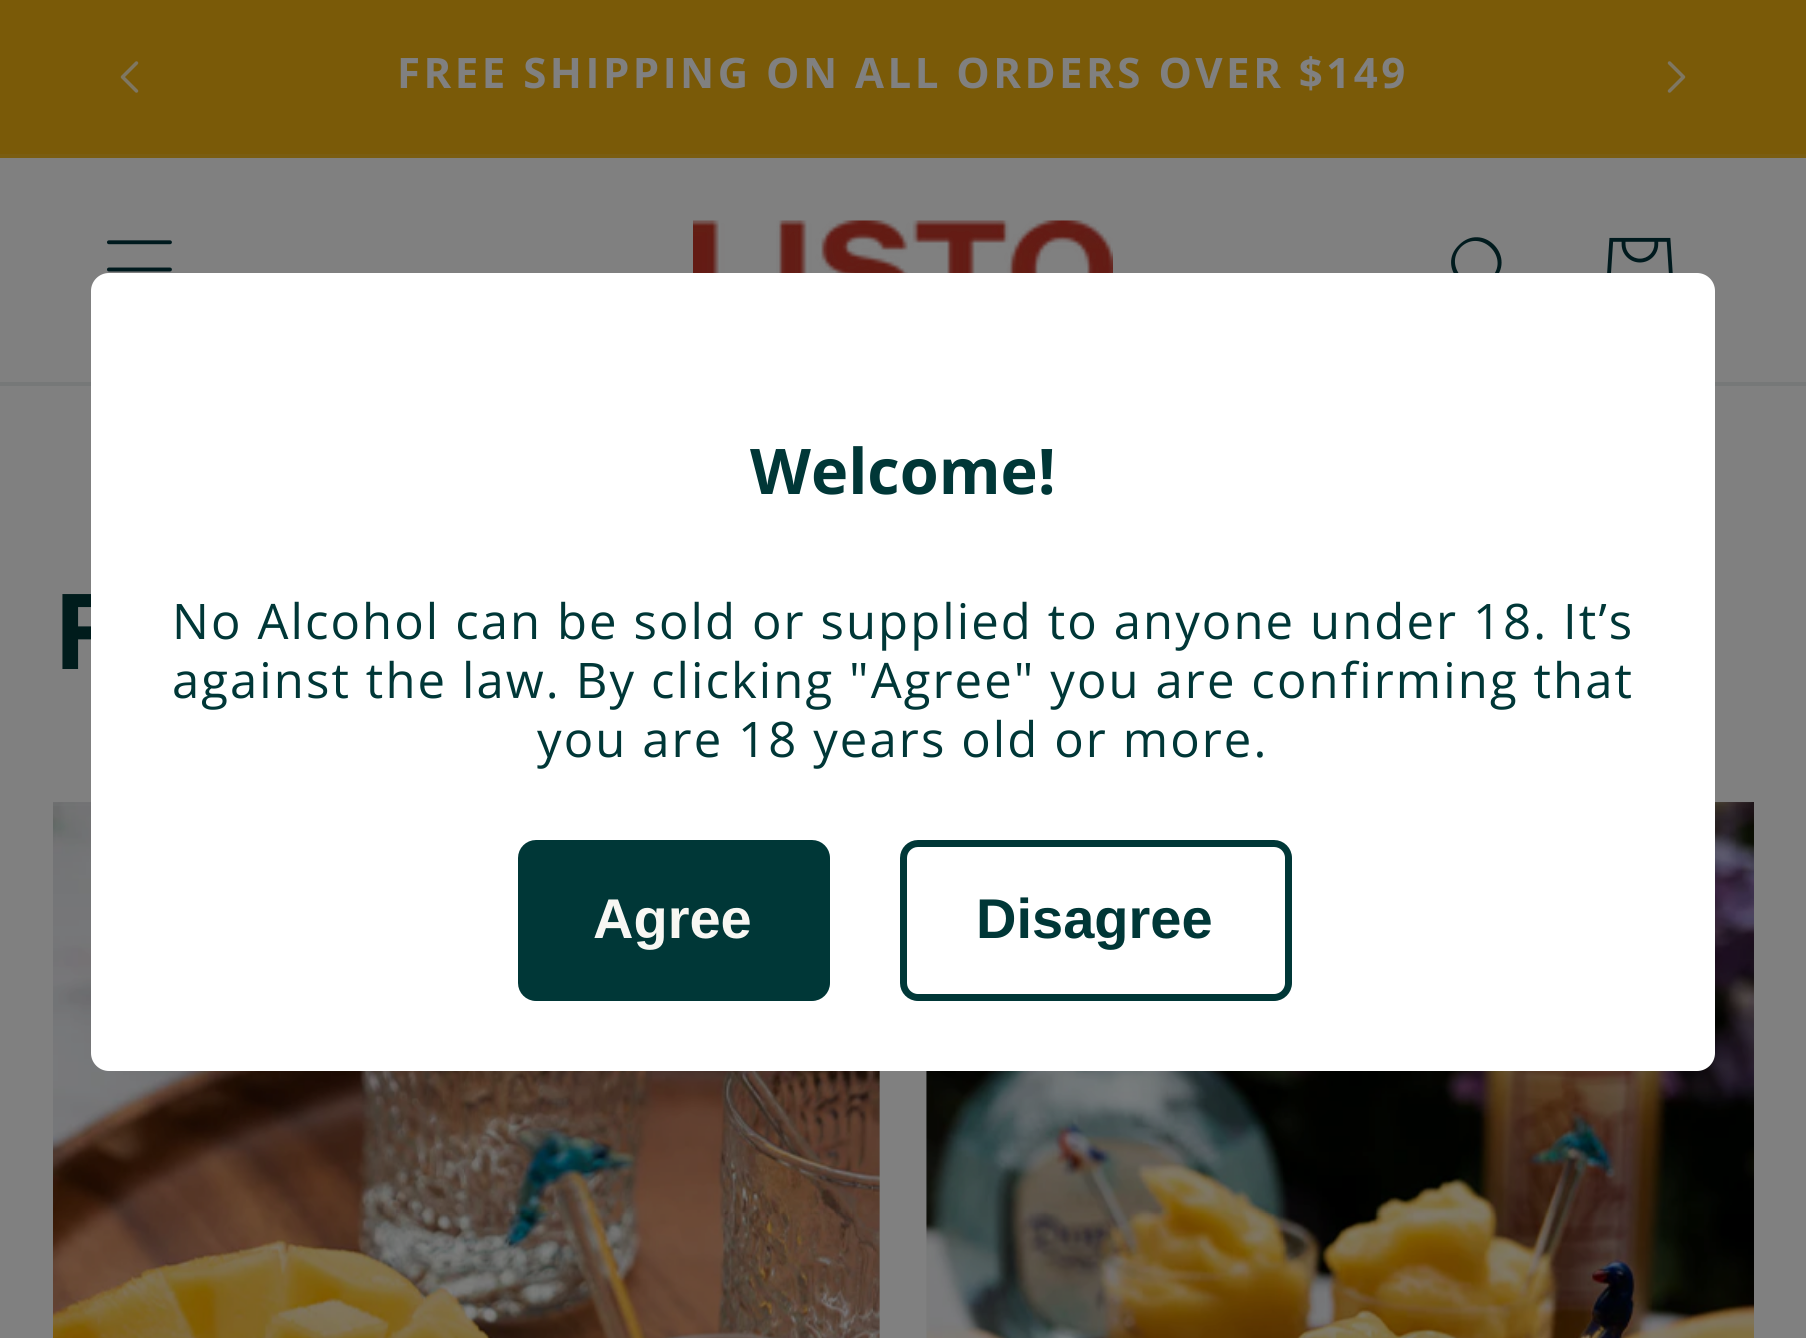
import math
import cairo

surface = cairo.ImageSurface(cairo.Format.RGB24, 1806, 1338)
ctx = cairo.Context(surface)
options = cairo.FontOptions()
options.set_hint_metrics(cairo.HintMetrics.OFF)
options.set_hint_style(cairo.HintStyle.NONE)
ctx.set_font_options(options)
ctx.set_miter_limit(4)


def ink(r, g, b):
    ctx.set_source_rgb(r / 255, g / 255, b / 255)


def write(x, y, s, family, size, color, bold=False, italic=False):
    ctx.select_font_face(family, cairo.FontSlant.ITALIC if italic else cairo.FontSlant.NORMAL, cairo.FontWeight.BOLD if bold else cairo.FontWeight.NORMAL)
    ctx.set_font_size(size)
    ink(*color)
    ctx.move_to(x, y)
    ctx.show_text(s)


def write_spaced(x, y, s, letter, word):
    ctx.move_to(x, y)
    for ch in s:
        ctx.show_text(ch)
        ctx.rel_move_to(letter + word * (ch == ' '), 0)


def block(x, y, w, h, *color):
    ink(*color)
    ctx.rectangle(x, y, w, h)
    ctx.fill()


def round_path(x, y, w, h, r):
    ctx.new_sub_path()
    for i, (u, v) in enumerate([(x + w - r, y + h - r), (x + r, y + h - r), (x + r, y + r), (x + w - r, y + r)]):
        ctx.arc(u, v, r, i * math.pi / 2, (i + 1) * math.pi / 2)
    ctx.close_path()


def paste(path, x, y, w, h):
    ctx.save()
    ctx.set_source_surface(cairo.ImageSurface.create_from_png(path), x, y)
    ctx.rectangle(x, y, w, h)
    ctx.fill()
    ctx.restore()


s1 = dict(family="Open Sans", size=63, color=(0, 55, 55), bold=True)
s2 = dict(family="Liberation Sans", size=56, color=(248, 247, 243), bold=True)
s3 = dict(family="Liberation Sans", size=56, color=(0, 55, 55), bold=True)

ink(128, 128, 128)
ctx.paint()
block(0, 0, 1806, 154, 122, 90, 8)
block(0, 154, 1806, 4, 122, 93, 17)
paste("pic1.png", 120, 61, 19, 32)
ctx.select_font_face("Open Sans", cairo.FontSlant.NORMAL, cairo.FontWeight.BOLD)
ctx.set_font_size(42)
ink(128, 128, 128)
write_spaced(397, 88, "FREE SHIPPING ON ALL ORDERS OVER $149", 3.5, 0)
paste("pic2.png", 1667, 61, 19, 32)
block(0, 382, 1806, 4, 118, 120, 120)
paste("pic3.png", 107, 240, 65, 32)
paste("pic4.png", 693, 220, 420, 53)
ink(1, 27, 30)
ctx.set_fill_rule(cairo.FillRule.EVEN_ODD)
ctx.new_path()
ctx.move_to(1491, 278)
ctx.curve_to(1472, 297, 1442, 267, 1461, 247)
ctx.curve_to(1481, 228, 1511, 258, 1491, 278)
ctx.move_to(1492, 282)
ctx.curve_to(1468, 302, 1436, 267, 1459, 245)
ctx.curve_to(1482, 222, 1516, 255, 1495, 279)
ctx.line_to(1516, 300)
ctx.curve_to(1516, 302, 1514, 303, 1512, 302)
ctx.close_path()
ctx.fill()
paste("pic5.png", 1607, 237, 66, 36)
ctx.set_font_size(105)
ink(0, 28, 28)
write_spaced(53, 669, "F", 2.1, 0)
paste("pic6.png", 53, 802, 1701, 536)
ink(255, 255, 255)
round_path(91, 273, 1624, 798, 18)
ctx.fill()
write(750, 494, "Welcome!", **s1)
ctx.select_font_face("Open Sans")
ctx.set_font_size(49)
write_spaced(172, 639, "No Alcohol can be sold or supplied to anyone under 18. It’s", 2.1, 0)
write_spaced(172, 698, "against the law. By clicking \"Agree\" you are confirming that", 2.1, 0)
write_spaced(537, 757, "you are 18 years old or more.", 2.1, 0)
round_path(521.5, 843.5, 305, 154, 14.5)
ctx.fill_preserve()
ctx.set_line_width(7)
ctx.stroke()
write(593, 938, "Agree", **s2)
round_path(903.5, 843.5, 385, 154, 14.5)
ink(0, 55, 55)
ctx.stroke()
write(976, 938, "Disagree", **s3)
surface.write_to_png("screenshot.png")
